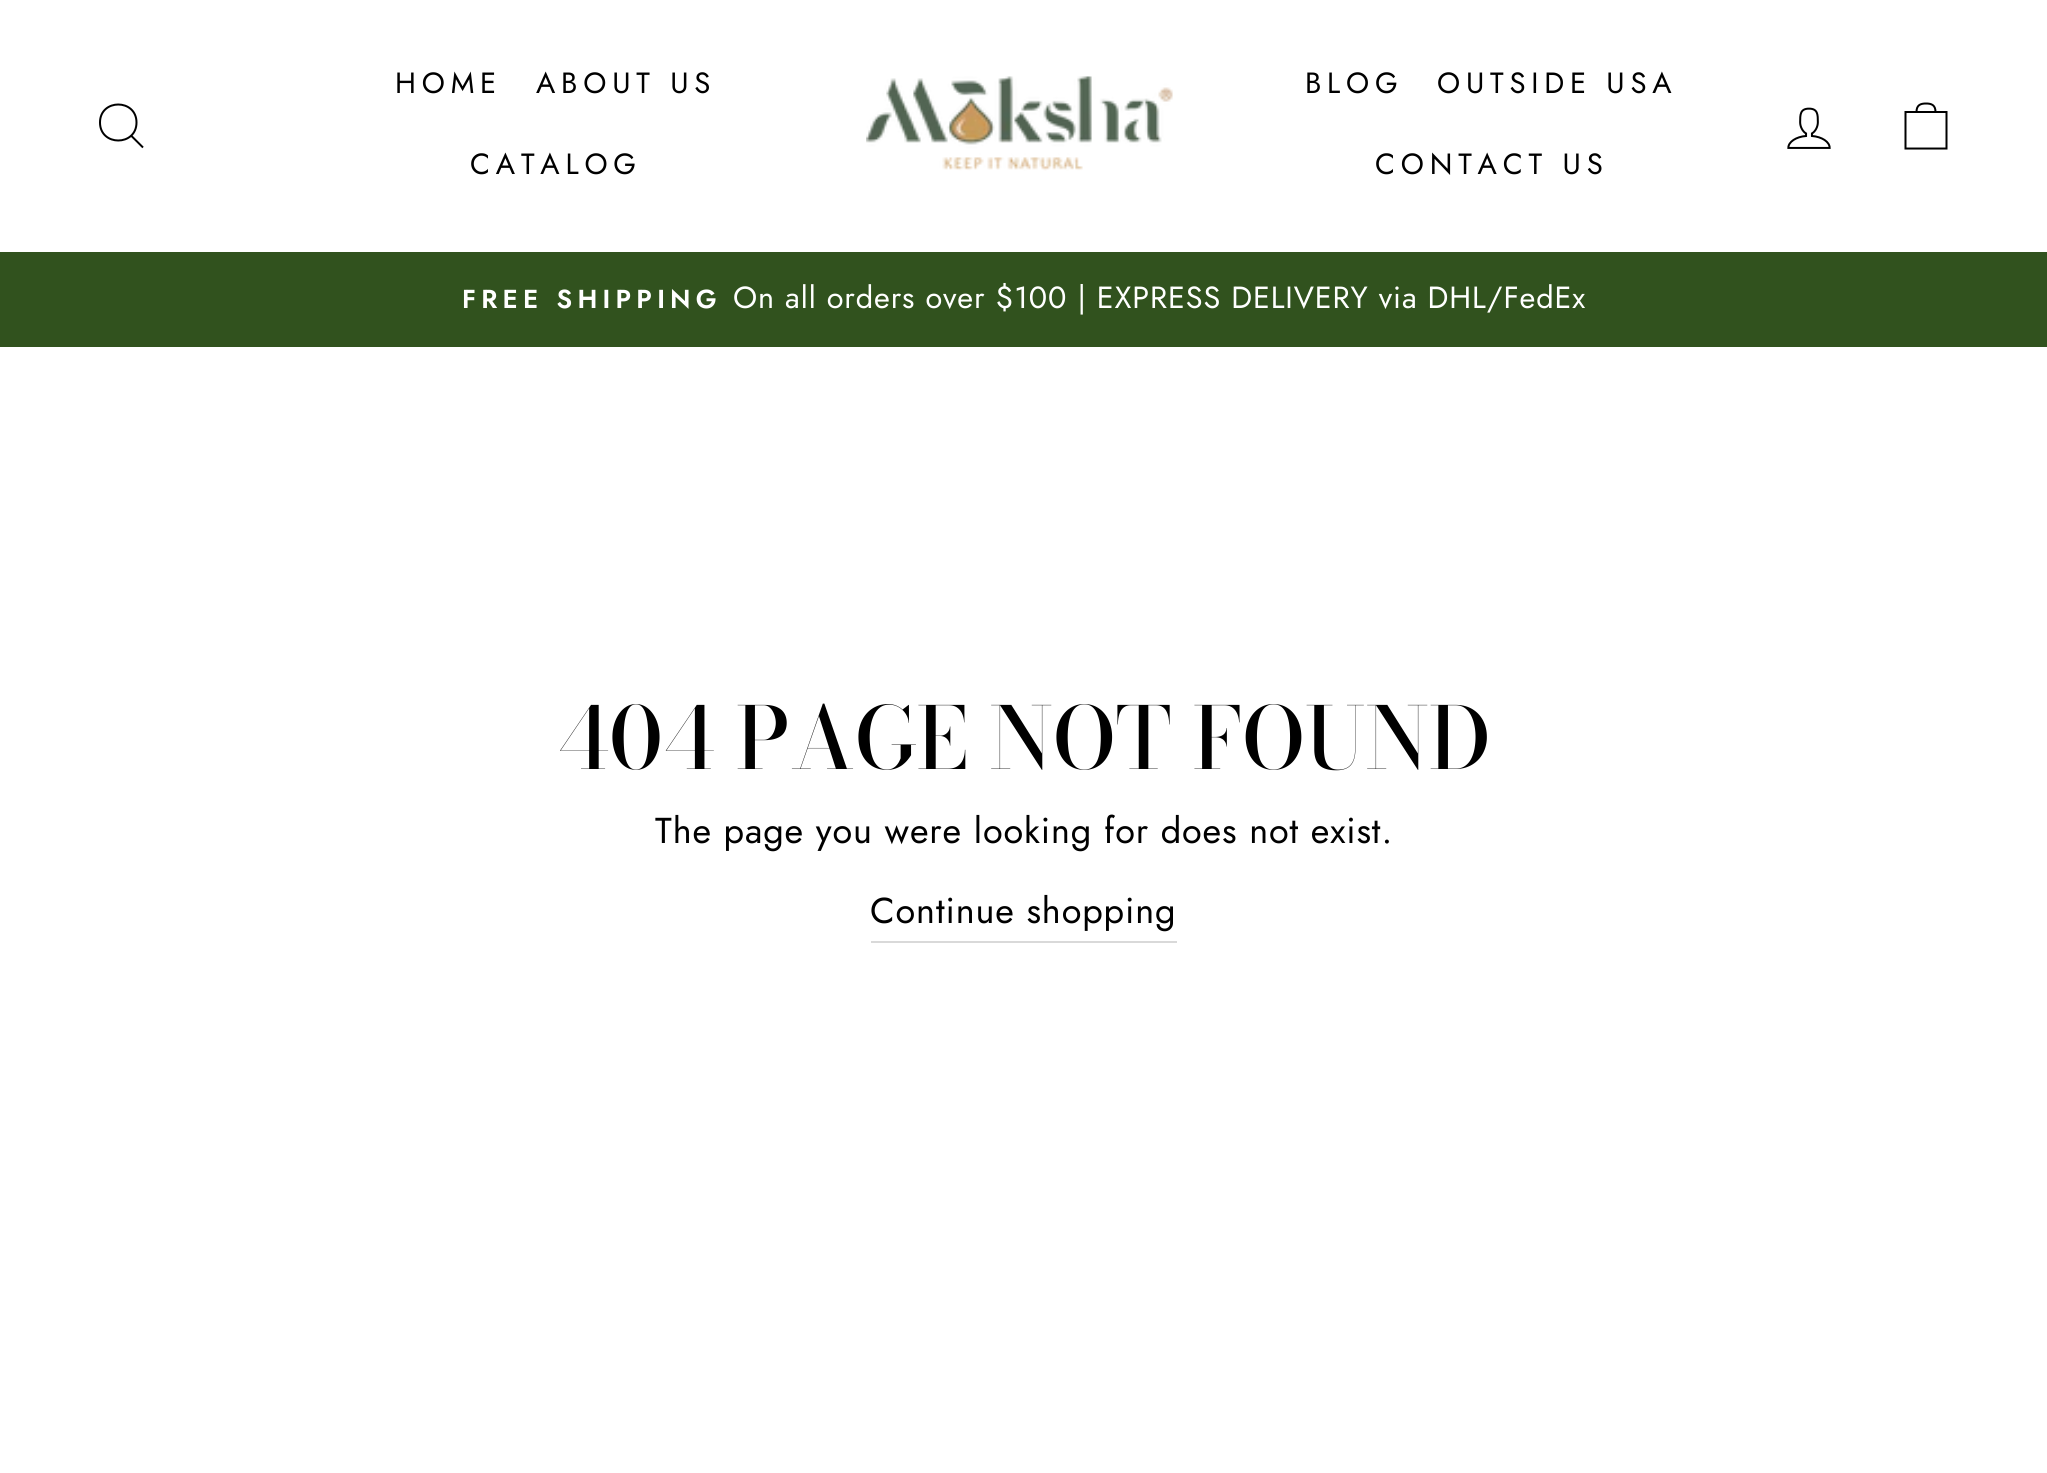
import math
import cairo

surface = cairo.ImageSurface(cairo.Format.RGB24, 2047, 1473)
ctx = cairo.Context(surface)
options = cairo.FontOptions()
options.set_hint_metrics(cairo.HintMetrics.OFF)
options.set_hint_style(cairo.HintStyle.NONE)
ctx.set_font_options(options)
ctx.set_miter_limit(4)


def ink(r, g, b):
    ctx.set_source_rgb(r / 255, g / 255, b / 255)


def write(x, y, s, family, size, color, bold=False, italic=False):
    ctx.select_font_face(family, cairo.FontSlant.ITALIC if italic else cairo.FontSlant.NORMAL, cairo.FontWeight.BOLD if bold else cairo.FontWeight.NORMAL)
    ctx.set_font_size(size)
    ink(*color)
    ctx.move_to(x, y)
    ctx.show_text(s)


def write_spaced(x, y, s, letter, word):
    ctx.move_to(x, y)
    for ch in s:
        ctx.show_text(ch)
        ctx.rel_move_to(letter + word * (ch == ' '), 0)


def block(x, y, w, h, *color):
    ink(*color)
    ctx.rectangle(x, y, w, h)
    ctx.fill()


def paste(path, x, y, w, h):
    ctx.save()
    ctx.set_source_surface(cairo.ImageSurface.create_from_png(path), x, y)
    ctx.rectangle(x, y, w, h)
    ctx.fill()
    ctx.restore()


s1 = dict(family="Bodoni Moda Medium", size=85.5, color=(0, 0, 0))

ink(255, 255, 255)
ctx.paint()
ctx.new_path()
ctx.move_to(136.5, 122.5)
ctx.curve_to(136.5, 146.5, 100, 146.5, 100, 122.5)
ctx.curve_to(100, 98.5, 136.5, 98.5, 136.5, 122.5)
ctx.close_path()
ctx.move_to(143, 147.5)
ctx.line_to(131.5, 136)
ink(0, 0, 0)
ctx.stroke()
ctx.select_font_face("Jost")
ctx.set_font_size(29.25)
write_spaced(395, 93, "HOME", 5.8, 0)
write_spaced(536, 93, "ABOUT US", 5.8, 0)
write_spaced(470, 174, "CATALOG", 5.8, 0)
paste("pic1.png", 866, 76, 307, 95)
write_spaced(1305, 93, "BLOG", 5.8, 0)
write_spaced(1437, 93, "OUTSIDE USA", 5.8, 0)
write_spaced(1375, 174, "CONTACT US", 5.8, 0)
paste("pic2.png", 1787, 107, 44, 42)
ctx.new_path()
ctx.move_to(1905.5, 112)
ctx.line_to(1946.5, 112)
ctx.line_to(1946.5, 148.5)
ctx.line_to(1905.5, 148.5)
ctx.close_path()
ctx.move_to(1916.5, 112)
ctx.curve_to(1916.5, 105, 1920.5, 103.5, 1926, 103.5)
ctx.curve_to(1931.5, 103.5, 1935.5, 105, 1935.5, 112)
ctx.stroke()
block(0, 252, 2047, 95, 49, 82, 30)
ctx.select_font_face("Jost SemiBold")
ctx.set_font_size(26)
ink(255, 255, 255)
write_spaced(462, 308, "FREE SHIPPING", 5.25, 0)
ctx.select_font_face("Jost")
ctx.set_font_size(30.6)
write_spaced(733, 308, "On all orders over $100 | EXPRESS DELIVERY via DHL/FedEx", 0.9, 0)
write(557, 769, "404 PAGE NOT FOUND", **s1)
ctx.select_font_face("Jost")
ctx.set_font_size(36)
write_spaced(655, 843, "The page you were looking for does not exist.", 0.9, 0)
block(871, 941, 306, 2, 217, 217, 217)
ink(0, 0, 0)
write_spaced(870, 923, "Continue shopping", 0.9, 0)
surface.write_to_png("screenshot.png")
